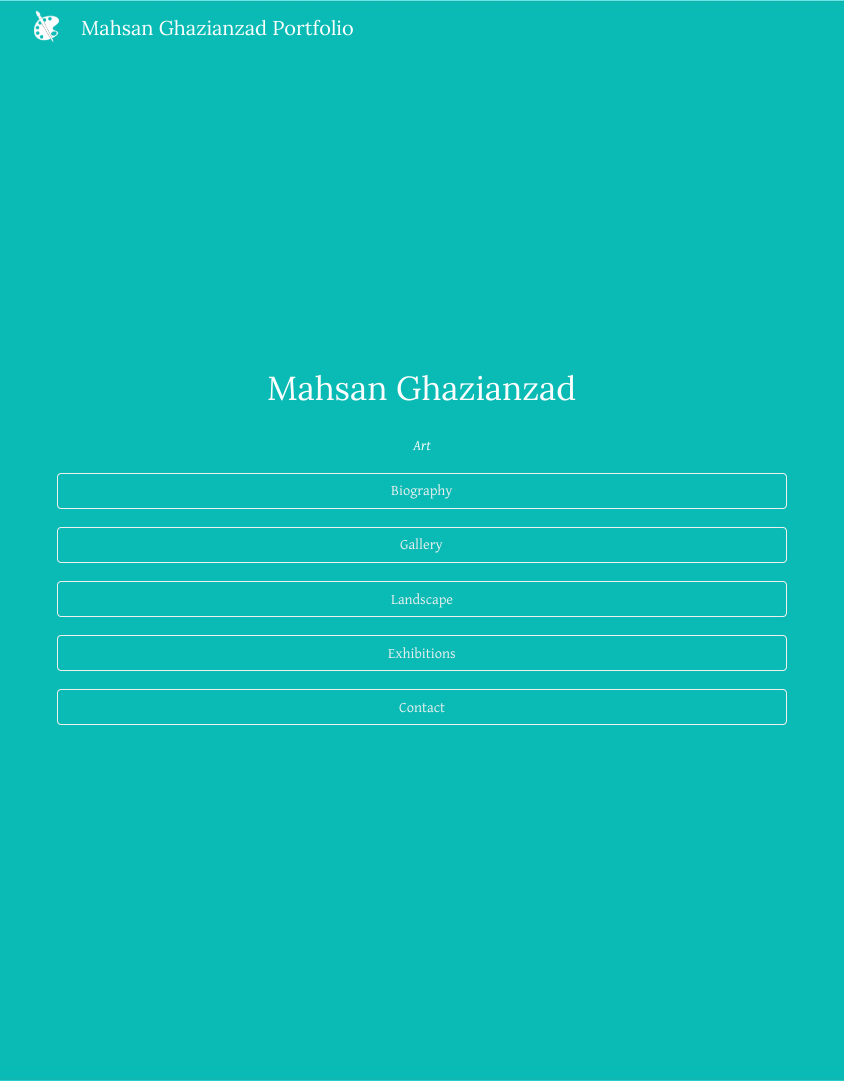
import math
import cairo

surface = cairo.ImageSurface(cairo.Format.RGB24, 844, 1081)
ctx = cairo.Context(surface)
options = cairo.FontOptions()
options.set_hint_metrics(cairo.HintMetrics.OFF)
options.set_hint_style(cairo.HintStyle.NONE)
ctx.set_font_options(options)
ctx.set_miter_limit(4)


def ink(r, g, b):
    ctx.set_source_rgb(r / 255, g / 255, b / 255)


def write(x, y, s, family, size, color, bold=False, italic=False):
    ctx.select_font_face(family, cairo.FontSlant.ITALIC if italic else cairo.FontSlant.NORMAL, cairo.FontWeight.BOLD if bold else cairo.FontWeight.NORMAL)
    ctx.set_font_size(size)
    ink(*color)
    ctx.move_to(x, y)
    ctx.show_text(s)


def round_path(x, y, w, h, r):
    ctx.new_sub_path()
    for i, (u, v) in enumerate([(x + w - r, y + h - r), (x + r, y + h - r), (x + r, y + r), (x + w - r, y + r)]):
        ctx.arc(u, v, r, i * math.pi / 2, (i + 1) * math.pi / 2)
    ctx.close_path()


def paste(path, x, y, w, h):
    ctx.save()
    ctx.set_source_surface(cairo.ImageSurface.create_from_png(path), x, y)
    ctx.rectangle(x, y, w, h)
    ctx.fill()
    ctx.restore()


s1 = dict(family="Lora", size=20, color=(255, 255, 255))
s2 = dict(family="Lora", size=33.25, color=(255, 255, 255))
s3 = dict(family="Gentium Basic", size=14.5, color=(255, 255, 255), italic=True)
s4 = dict(family="Gentium Basic", size=14.5, color=(240, 240, 240))

ink(255, 255, 255)
ctx.paint()
paste("pic2.png", 0, 0, 844, 1081)
paste("pic1.png", 34, 10, 26, 33)
write(81, 35, "Mahsan Ghazianzad Portfolio", **s1)
write(267, 400, "Mahsan Ghazianzad", **s2)
write(413, 450, "Art", **s3)
round_path(57.5, 473.5, 729, 35, 3.5)
ink(240, 240, 240)
ctx.set_line_width(1)
ctx.stroke()
write(391, 495, "Biography", **s4)
round_path(57.5, 527.5, 729, 35, 3.5)
ctx.stroke()
write(400, 549, "Gallery", **s4)
round_path(57.5, 581.5, 729, 35, 3.5)
ctx.stroke()
write(391, 604, "Landscape", **s4)
round_path(57.5, 635.5, 729, 35, 3.5)
ctx.stroke()
write(388, 658, "Exhibitions", **s4)
round_path(57.5, 689.5, 729, 35, 3.5)
ctx.stroke()
write(399, 712, "Contact", **s4)
surface.write_to_png("screenshot.png")
